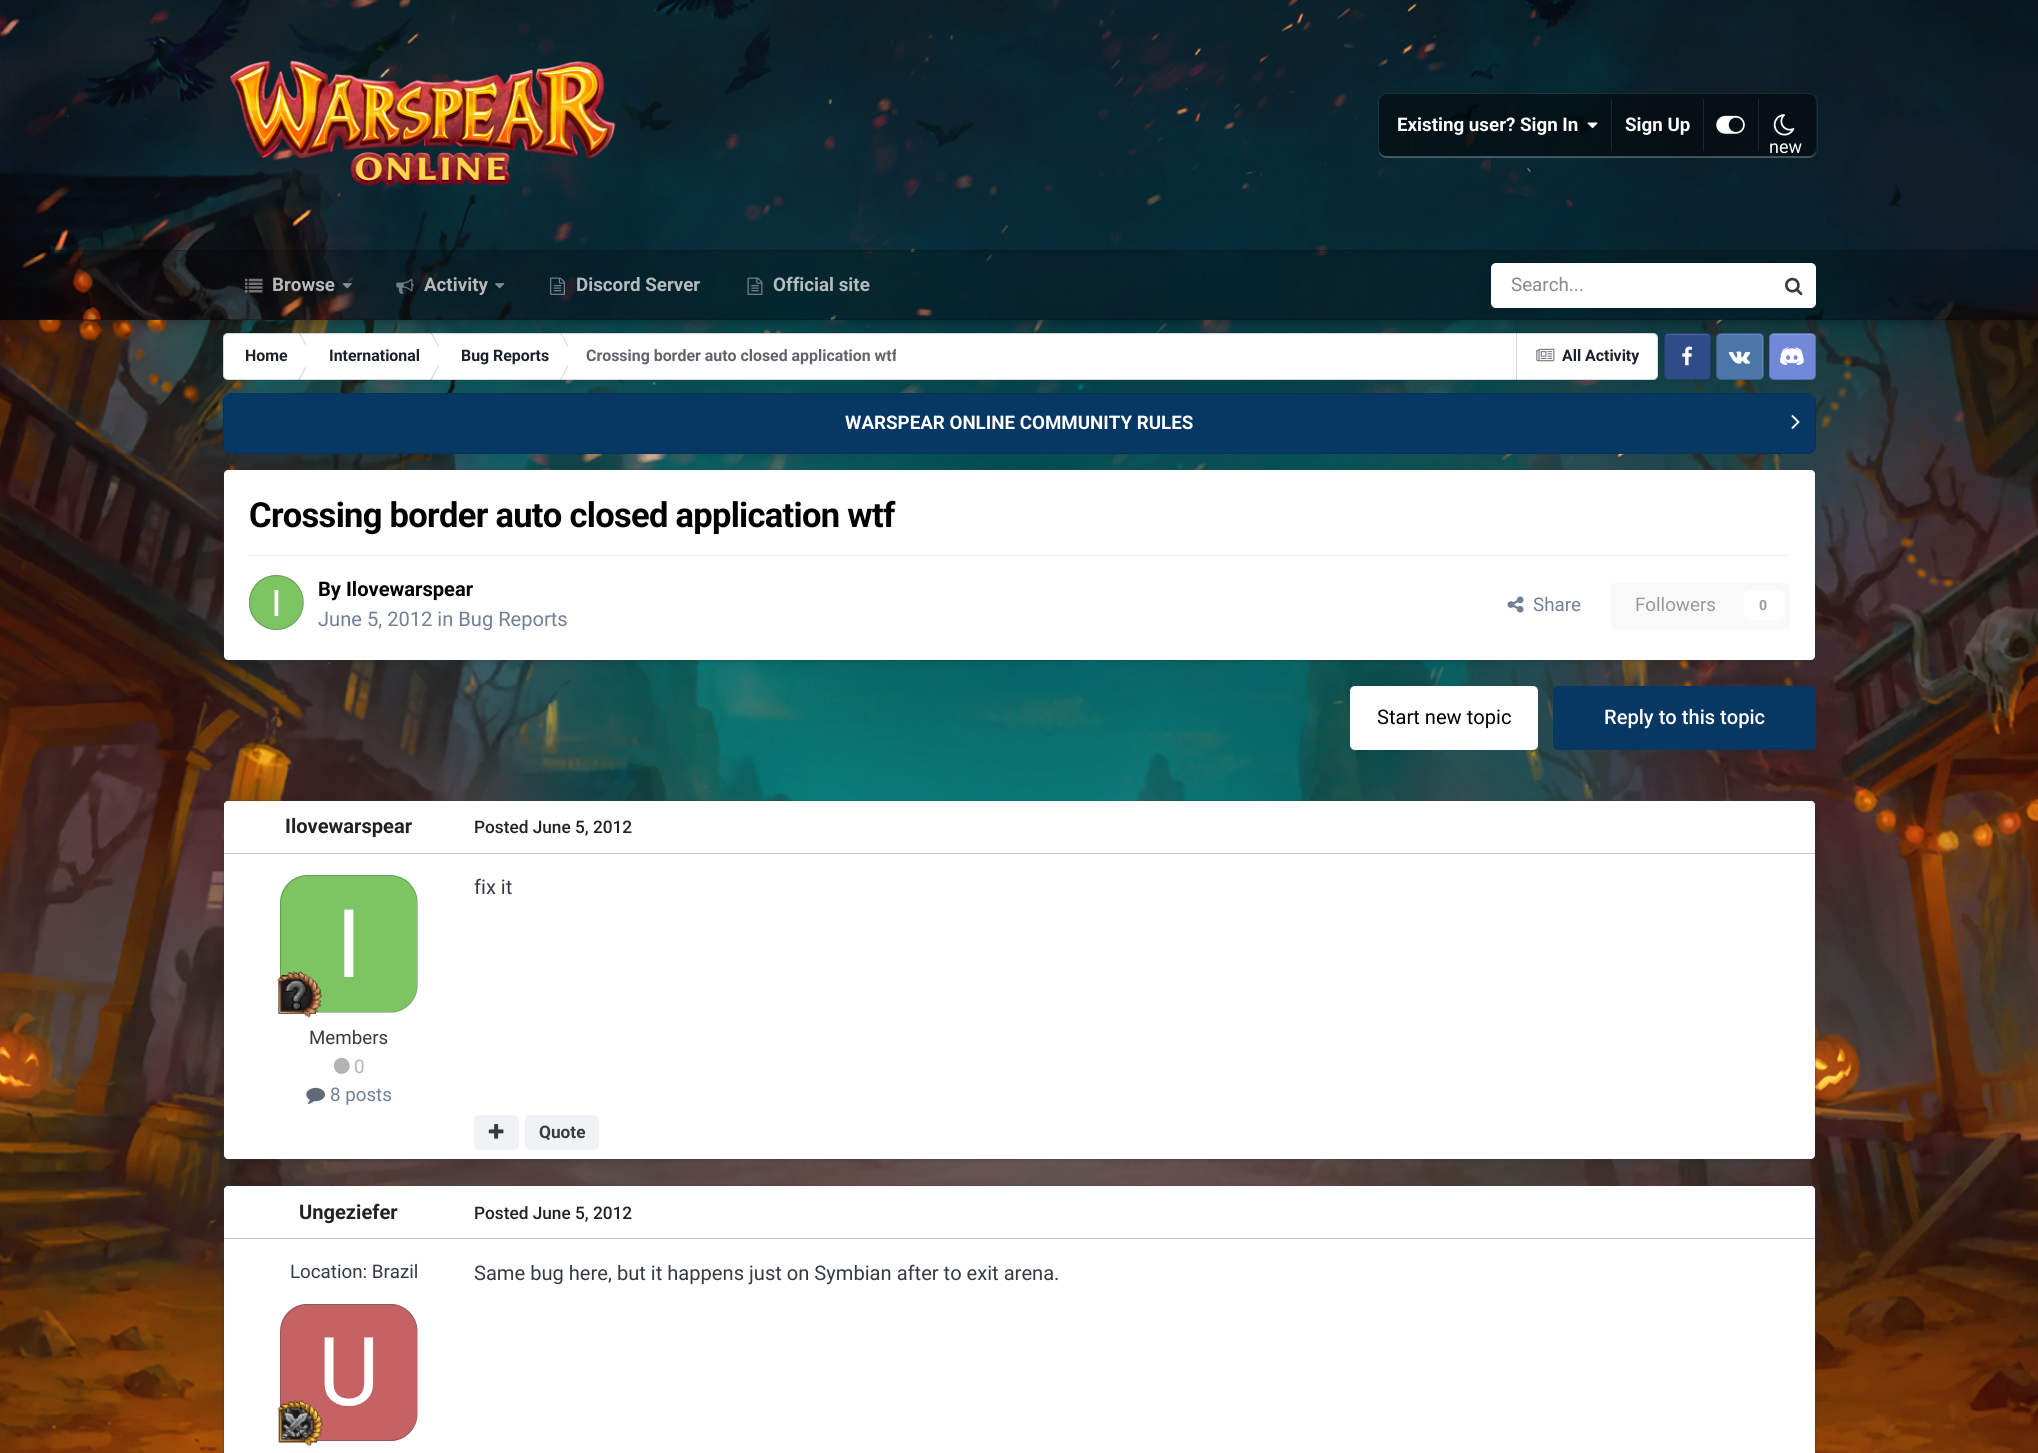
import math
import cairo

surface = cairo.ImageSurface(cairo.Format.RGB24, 2038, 1453)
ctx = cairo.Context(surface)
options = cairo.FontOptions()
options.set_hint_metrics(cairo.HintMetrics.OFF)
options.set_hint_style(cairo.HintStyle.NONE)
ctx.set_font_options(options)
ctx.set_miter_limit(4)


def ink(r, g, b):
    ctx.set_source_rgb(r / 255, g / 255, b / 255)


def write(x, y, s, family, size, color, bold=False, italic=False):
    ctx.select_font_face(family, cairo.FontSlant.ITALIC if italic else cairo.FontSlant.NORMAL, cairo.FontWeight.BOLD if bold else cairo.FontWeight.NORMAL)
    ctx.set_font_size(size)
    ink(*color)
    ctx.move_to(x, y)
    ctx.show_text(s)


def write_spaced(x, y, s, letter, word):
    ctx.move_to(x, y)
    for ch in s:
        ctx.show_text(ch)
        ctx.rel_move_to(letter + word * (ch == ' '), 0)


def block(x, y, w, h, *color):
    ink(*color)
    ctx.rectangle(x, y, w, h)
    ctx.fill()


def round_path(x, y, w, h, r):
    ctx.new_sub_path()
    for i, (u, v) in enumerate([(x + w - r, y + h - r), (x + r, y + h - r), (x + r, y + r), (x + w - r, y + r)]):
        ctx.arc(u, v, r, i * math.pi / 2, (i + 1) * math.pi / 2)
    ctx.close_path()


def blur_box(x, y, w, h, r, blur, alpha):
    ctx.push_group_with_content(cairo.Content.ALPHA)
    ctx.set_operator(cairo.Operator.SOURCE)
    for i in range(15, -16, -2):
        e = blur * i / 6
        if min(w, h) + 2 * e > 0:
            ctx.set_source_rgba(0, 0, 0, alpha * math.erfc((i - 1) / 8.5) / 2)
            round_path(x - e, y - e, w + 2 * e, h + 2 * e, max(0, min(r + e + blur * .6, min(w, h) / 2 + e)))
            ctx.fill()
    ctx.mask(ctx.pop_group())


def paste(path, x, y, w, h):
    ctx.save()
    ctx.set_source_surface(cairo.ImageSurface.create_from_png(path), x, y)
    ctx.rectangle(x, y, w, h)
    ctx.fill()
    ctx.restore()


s1 = dict(family="Roboto", size=18.75, color=(255, 255, 255), bold=True)
s2 = dict(family="Roboto", size=18, color=(255, 255, 255))
s3 = dict(family="Roboto", size=18.75, color=(183, 184, 185), bold=True)
s4 = dict(family="Roboto", size=18.75, color=(180, 188, 191), bold=True)
s5 = dict(family="Roboto", size=18.75, color=(134, 138, 141))
s6 = dict(family="Roboto", size=15.9, color=(26, 32, 44), bold=True)
s7 = dict(family="Roboto", size=15.9, color=(95, 99, 107), bold=True)
s8 = dict(family="Roboto", size=20.1, color=(0, 0, 0), bold=True)
s9 = dict(family="Roboto", size=20.1, color=(113, 128, 150))
s10 = dict(family="Roboto", size=18.75, color=(113, 128, 150))
s11 = dict(family="Roboto", size=18.75, color=(153, 153, 153))
s12 = dict(family="Roboto", size=14, color=(154, 158, 160), bold=True)
s13 = dict(family="Roboto", size=20.1, color=(0, 0, 0))
s14 = dict(family="Roboto Medium", size=20.1, color=(255, 255, 255))
s15 = dict(family="Roboto", size=20.1, color=(34, 34, 34), bold=True)
s16 = dict(family="Roboto", size=18.75, color=(53, 60, 65))
s17 = dict(family="Roboto", size=18.75, color=(179, 179, 179))
s18 = dict(family="Roboto Medium", size=17.25, color=(34, 34, 34))
s19 = dict(family="Roboto", size=20.1, color=(53, 60, 65))
s20 = dict(family="Roboto", size=17.25, color=(53, 60, 65), bold=True)

ink(255, 255, 255)
ctx.paint()
paste("pic1.png", 0, 319, 2038, 1134)
ink(255, 255, 255)
round_path(223, 333, 1435, 47, 5)
ctx.fill()
gradient = cairo.LinearGradient(940, 332, 940, 380)
gradient.add_color_stop_rgba(0, 1, 1, 1, 0.05)
gradient.add_color_stop_rgba(1, 1, 1, 1, 0)
ctx.set_source(gradient)
ctx.rectangle(223, 333, 1435, 4)
ctx.fill()
ctx.save()
ctx.rectangle(223, 333, 83, 47)
ctx.clip()
ink(215, 216, 217)
ctx.new_path()
ctx.move_to(300, 333)
ctx.line_to(298.5, 333)
ctx.line_to(312, 356)
ctx.line_to(313, 356)
ctx.close_path()
ctx.move_to(298, 380)
ctx.line_to(299.5, 380)
ctx.line_to(313, 356)
ctx.line_to(312, 356)
ctx.close_path()
ctx.fill()
ctx.restore()
ctx.save()
ctx.rectangle(306, 333, 133, 47)
ctx.clip()
ink(215, 216, 217)
ctx.new_path()
ctx.move_to(432, 333)
ctx.line_to(430.5, 333)
ctx.line_to(444, 356)
ctx.line_to(445, 356)
ctx.close_path()
ctx.move_to(430, 380)
ctx.line_to(431.5, 380)
ctx.line_to(445, 356)
ctx.line_to(444, 356)
ctx.close_path()
ctx.fill()
ctx.restore()
ctx.save()
ctx.rectangle(439, 333, 129, 47)
ctx.clip()
ink(215, 216, 217)
ctx.new_path()
ctx.move_to(561, 333)
ctx.line_to(560, 333)
ctx.line_to(573, 356)
ctx.line_to(574.5, 356)
ctx.close_path()
ctx.move_to(559.5, 380)
ctx.line_to(560.5, 380)
ctx.line_to(574.5, 356)
ctx.line_to(573, 356)
ctx.close_path()
ctx.fill()
ctx.restore()
block(1516, 333, 1, 47, 215, 216, 217)
paste("pic14.png", 1536, 348, 19, 14)
round_path(223.5, 333.5, 1434, 46, 4.5)
ctx.set_source_rgba(0.208, 0.235, 0.255, 0.2)
ctx.set_line_width(1)
ctx.stroke()
ink(0, 0, 0)
blur_box(1664, 334, 47, 47, 5, 2, 0.1)
ink(48, 76, 135)
round_path(1664, 333, 47, 47, 5)
ctx.fill()
ink(79, 103, 153)
ctx.new_path()
ctx.move_to(1669, 335)
ctx.curve_to(1667, 335, 1665, 337, 1665, 339)
ctx.curve_to(1665, 333, 1670, 334, 1675, 334)
ctx.line_to(1700, 334)
ctx.curve_to(1705, 334, 1710, 333, 1710, 339)
ctx.curve_to(1710, 337, 1708, 335, 1706, 335)
ctx.close_path()
ctx.fill()
paste("pic15.png", 1682, 346, 10, 20)
round_path(1664.5, 333.5, 46, 46, 4.5)
ctx.set_source_rgba(0, 0, 0, 0.2)
ctx.stroke()
ink(0, 0, 0)
blur_box(1716, 334, 48, 47, 5, 2, 0.1)
ink(74, 118, 168)
round_path(1716, 333, 48, 47, 5)
ctx.fill()
paste("pic16.png", 1728, 351, 23, 13)
ink(101, 139, 181)
ctx.new_path()
ctx.move_to(1721, 335)
ctx.curve_to(1719, 335, 1718, 337, 1718, 339)
ctx.line_to(1718, 338)
ctx.curve_to(1718, 336, 1720, 334, 1722, 334)
ctx.line_to(1759, 334)
ctx.curve_to(1761, 334, 1763, 336, 1763, 338)
ctx.line_to(1763, 375)
ctx.curve_to(1763, 376, 1762, 377, 1762, 378)
ctx.line_to(1762, 345)
ctx.curve_to(1762, 344, 1763, 335, 1759, 335)
ctx.close_path()
ctx.fill()
round_path(1716.5, 333.5, 47, 46, 4.5)
ctx.set_source_rgba(0, 0, 0, 0.2)
ctx.stroke()
ink(114, 137, 218)
round_path(1769, 333, 47, 47, 5)
ctx.fill()
ink(135, 155, 224)
ctx.new_path()
ctx.move_to(1774, 335)
ctx.curve_to(1772, 335, 1770, 337, 1770, 339)
ctx.curve_to(1770, 333, 1775, 334, 1780, 334)
ctx.line_to(1805, 334)
ctx.curve_to(1810, 334, 1815, 333, 1815, 339)
ctx.curve_to(1815, 337, 1813, 335, 1811, 335)
ctx.close_path()
ctx.fill()
paste("pic17.png", 1780, 347, 24, 18)
round_path(1769.5, 333.5, 46, 46, 4.5)
ctx.set_source_rgba(0, 0, 0, 0.2)
ctx.stroke()
ink(0, 0, 0)
blur_box(0, 1, 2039, 320, 0, 6, 0.35)
paste("pic2.png", 0, 0, 2038, 320)
paste("pic3.png", 230, 60, 386, 126)
round_path(1378.5, 93.5, 439, 64, 8.5)
ctx.set_source_rgba(1, 1, 1, 0.07)
ctx.stroke()
ctx.set_source_rgba(1, 1, 1, 0.2)
ctx.new_path()
ctx.move_to(1379, 151)
ctx.curve_to(1379, 155, 1383, 158, 1387, 158)
ctx.line_to(1808, 158)
ctx.curve_to(1812, 158, 1816, 155, 1816, 151)
ctx.curve_to(1815, 154, 1812, 156, 1809, 156)
ctx.line_to(1386, 156)
ctx.curve_to(1383, 156, 1380, 154, 1379, 151)
ctx.close_path()
ctx.fill()
ctx.set_source_rgba(0, 0, 0, 0.5)
round_path(1379, 94, 437, 62, 8)
ctx.fill()
write(1397, 131, "Existing user? Sign In", **s1)
paste("pic4.png", 1587, 122, 11, 7)
block(1611, 99, 1, 52, 30, 41, 46)
write(1625, 131, "Sign Up", **s1)
block(1703, 99, 1, 52, 31, 39, 45)
paste("pic5.png", 1716, 115, 29, 19)
block(1758, 99, 1, 52, 31, 39, 45)
paste("pic6.png", 1773, 114, 22, 22)
write(1769, 153, "new", **s2)
ctx.set_source_rgba(0, 0, 0, 0.2)
ctx.rectangle(0, 250, 2038, 70)
ctx.fill()
ctx.rectangle(10, 250, 2028, 1)
ctx.fill()
ctx.rectangle(0, 319, 2038, 1)
ctx.fill()
paste("pic7.png", 245, 278, 18, 15)
write(272, 291, "Browse", **s3)
paste("pic8.png", 342, 283, 10, 6)
paste("pic9.png", 396, 278, 18, 16)
write(424, 291, "Activity", **s3)
paste("pic10.png", 495, 283, 10, 6)
paste("pic11.png", 550, 277, 15, 18)
write(576, 291, "Discord Server", **s4)
paste("pic12.png", 747, 277, 16, 18)
write(773, 291, "Official site", **s4)
ink(255, 255, 255)
round_path(1491, 263, 325, 45, 5)
ctx.fill()
write(1511, 291, "Search...", **s5)
paste("pic13.png", 1785, 277, 18, 19)
write(245, 361, "Home", **s6)
write(329, 361, "International", **s6)
write(461, 361, "Bug Reports", **s6)
ctx.save()
ctx.rectangle(568, 333, 328, 47)
ctx.clip()
write(586, 361, "Crossing border auto closed application wtf", **s7)
ctx.restore()
write(1562, 361, "All Activity", **s6)
ink(7, 55, 99)
round_path(223, 393, 1593, 61, 8)
ctx.fill()
ink(32, 75, 115)
ctx.new_path()
ctx.move_to(230, 395)
ctx.line_to(1809, 395)
ctx.curve_to(1812, 395, 1815, 398, 1815, 401)
ctx.curve_to(1815, 397, 1813, 394, 1809, 394)
ctx.line_to(230, 394)
ctx.curve_to(226, 394, 224, 397, 224, 401)
ctx.curve_to(224, 398, 227, 395, 230, 395)
ctx.close_path()
ctx.fill()
round_path(223.5, 393.5, 1592, 60, 7.5)
ctx.set_source_rgba(0, 0, 0, 0.1)
ctx.stroke()
ink(7, 55, 99)
round_path(224, 394, 1591, 59, 8)
ctx.fill()
write(845, 429, "WARSPEAR ONLINE COMMUNITY RULES", **s1)
paste("pic18.png", 1791, 415, 9, 14)
ink(0, 0, 0)
blur_box(224, 473, 1591, 190, 4, 2.5, 0.1)
ink(255, 255, 255)
round_path(224, 470, 1591, 190, 4)
ctx.fill()
round_path(223.5, 469.5, 1592, 191, 4.5)
ctx.set_source_rgba(0.208, 0.235, 0.255, 0.2)
ctx.stroke()
ctx.set_font_size(34.5)
ink(0, 0, 0)
write_spaced(249, 527, "Crossing border auto closed application wtf", -0.7, 0)
block(249, 555, 1541, 1, 239, 239, 240)
paste("pic19.png", 249, 575, 55, 55)
ctx.arc(276.5, 602.5, 27, 0, 2 * math.pi)
ctx.set_source_rgba(0.208, 0.235, 0.255, 0.3)
ctx.stroke()
write(318, 596, "By Ilovewarspear", **s8)
write(318, 626, "June 5, 2012 in Bug Reports", **s9)
paste("pic20.png", 1507, 596, 17, 17)
write(1533, 611, "Share", **s10)
ink(249, 249, 249)
round_path(1611, 583, 179, 46, 5)
ctx.fill()
write(1635, 611, "Followers", **s11)
ink(255, 255, 255)
round_path(1744, 590, 40, 30, 5)
ctx.fill()
write(1759, 610, "0", **s12)
ink(255, 255, 255)
round_path(1350, 686, 188, 64, 5)
ctx.fill()
write(1377, 724, "Start new topic", **s13)
ink(7, 55, 99)
round_path(1553, 686, 263, 64, 5)
ctx.fill()
write(1604, 724, "Reply to this topic", **s14)
ink(0, 0, 0)
blur_box(224, 804, 1591, 357, 4, 2.5, 0.1)
ink(255, 255, 255)
round_path(224, 801, 1591, 358, 4)
ctx.fill()
round_path(223.5, 800.5, 1592, 359, 4.5)
ctx.set_source_rgba(0.208, 0.235, 0.255, 0.2)
ctx.stroke()
ink(255, 255, 255)
ctx.new_path()
ctx.move_to(229, 801)
ctx.line_to(1810, 801)
ctx.curve_to(1813, 801, 1815, 803, 1815, 806)
ctx.line_to(1815, 854)
ctx.line_to(224, 854)
ctx.line_to(224, 806)
ctx.curve_to(224, 803, 226, 801, 229, 801)
ctx.close_path()
ctx.fill()
block(224, 853, 1591, 1, 194, 197, 198)
write(285, 833, "Ilovewarspear", **s15)
paste("pic21.png", 280, 875, 138, 138)
ctx.new_path()
ctx.move_to(308, 875.5)
ctx.line_to(390, 875.5)
ctx.curve_to(405, 875.5, 417.5, 888, 417.5, 903)
ctx.line_to(417.5, 985)
ctx.curve_to(417.5, 1000, 405, 1012.5, 390, 1012.5)
ctx.line_to(290, 1012.5)
ctx.curve_to(285, 1012.5, 280.5, 1008, 280.5, 1003)
ctx.line_to(280.5, 903)
ctx.curve_to(280.5, 888, 293, 875.5, 308, 875.5)
ctx.close_path()
ctx.set_source_rgba(0.208, 0.235, 0.255, 0.3)
ctx.stroke()
paste("pic22.png", 277, 971, 45, 47)
write(309, 1044, "Members", **s16)
ink(179, 179, 179)
ctx.new_path()
ctx.move_to(348.5, 1062)
ctx.curve_to(354, 1071, 340, 1079, 335, 1070)
ctx.curve_to(329.5, 1060.5, 343.5, 1052.5, 348.5, 1062)
ctx.close_path()
ctx.fill()
write(354, 1073, "0", **s17)
paste("pic23.png", 306, 1087, 19, 17)
write(330, 1101, "8 posts", **s10)
write(474, 833, "Posted June 5, 2012", **s18)
write(474, 894, "fix it", **s19)
ink(241, 242, 245)
round_path(474, 1115, 45, 35, 5)
ctx.fill()
paste("pic24.png", 488, 1124, 16, 15)
round_path(525, 1115, 74, 35, 5)
ctx.fill()
write(539, 1138, "Quote", **s20)
ink(0, 0, 0)
blur_box(224, 1189, 1591, 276, 4, 2.5, 0.1)
ink(255, 255, 255)
round_path(224, 1186, 1591, 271, 4)
ctx.fill()
round_path(223.5, 1185.5, 1592, 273, 4.5)
ctx.set_source_rgba(0.208, 0.235, 0.255, 0.2)
ctx.stroke()
ink(255, 255, 255)
ctx.new_path()
ctx.move_to(229, 1186)
ctx.line_to(1810, 1186)
ctx.curve_to(1813, 1186, 1815, 1188, 1815, 1191)
ctx.line_to(1815, 1239)
ctx.line_to(224, 1239)
ctx.line_to(224, 1191)
ctx.curve_to(224, 1188, 226, 1186, 229, 1186)
ctx.close_path()
ctx.fill()
block(224, 1238, 1591, 1, 194, 197, 198)
write(299, 1219, "Ungeziefer", **s15)
write(290, 1278, "Location: Brazil", **s16)
paste("pic25.png", 280, 1304, 138, 137)
ctx.new_path()
ctx.move_to(308, 1304.5)
ctx.line_to(390, 1304.5)
ctx.curve_to(405, 1304.5, 417.5, 1317, 417.5, 1332)
ctx.line_to(417.5, 1413)
ctx.curve_to(417.5, 1428, 405, 1440.5, 390, 1440.5)
ctx.line_to(290, 1440.5)
ctx.curve_to(285, 1440.5, 280.5, 1436, 280.5, 1431)
ctx.line_to(280.5, 1332)
ctx.curve_to(280.5, 1317, 293, 1304.5, 308, 1304.5)
ctx.close_path()
ctx.set_source_rgba(0.208, 0.235, 0.255, 0.3)
ctx.stroke()
paste("pic26.png", 277, 1400, 46, 47)
write(474, 1219, "Posted June 5, 2012", **s18)
write(474, 1280, "Same bug here, but it happens just on Symbian after to exit arena.", **s19)
surface.write_to_png("screenshot.png")
